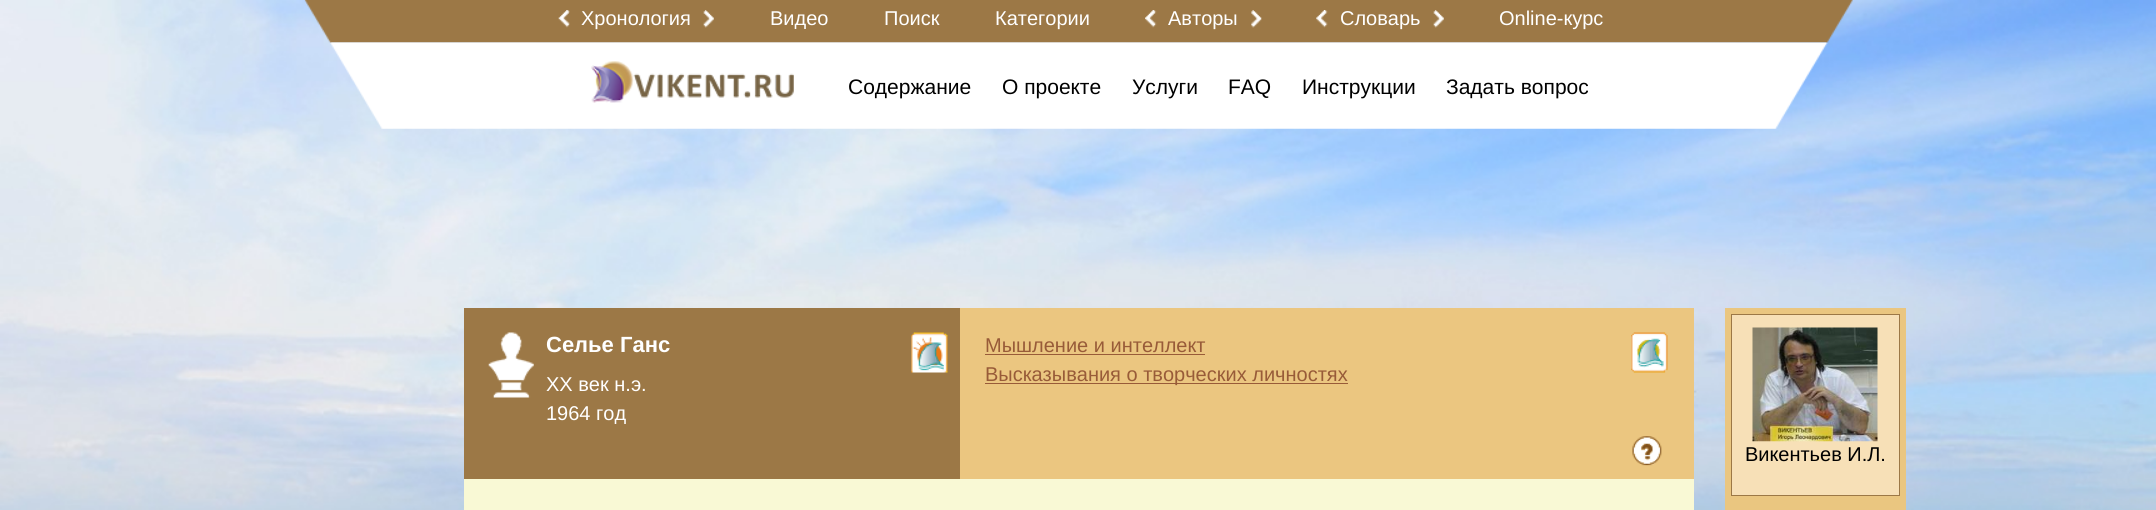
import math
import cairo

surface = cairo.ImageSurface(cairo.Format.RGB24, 2156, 510)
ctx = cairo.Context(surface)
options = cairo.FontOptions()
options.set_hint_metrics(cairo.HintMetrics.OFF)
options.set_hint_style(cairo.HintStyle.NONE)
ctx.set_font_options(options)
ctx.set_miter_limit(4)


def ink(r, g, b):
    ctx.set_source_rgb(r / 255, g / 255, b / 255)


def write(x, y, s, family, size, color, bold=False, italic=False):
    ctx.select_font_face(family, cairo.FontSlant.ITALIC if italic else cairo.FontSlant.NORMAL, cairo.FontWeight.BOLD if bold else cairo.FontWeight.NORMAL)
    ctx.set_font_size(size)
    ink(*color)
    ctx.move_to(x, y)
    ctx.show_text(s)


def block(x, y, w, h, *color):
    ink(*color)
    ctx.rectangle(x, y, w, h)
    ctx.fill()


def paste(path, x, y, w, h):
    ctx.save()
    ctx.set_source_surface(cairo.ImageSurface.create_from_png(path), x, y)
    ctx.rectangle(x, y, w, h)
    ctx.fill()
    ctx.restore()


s1 = dict(family="Liberation Sans", size=20, color=(255, 255, 255))
s2 = dict(family="Liberation Sans", size=21, color=(0, 0, 0))
s3 = dict(family="Liberation Sans", size=22, color=(255, 255, 255), bold=True)
s4 = dict(family="Liberation Sans", size=20, color=(152, 91, 56))
s5 = dict(family="Liberation Sans", size=20, color=(0, 0, 0))

ink(255, 255, 255)
ctx.paint()
paste("pic1.png", 0, 0, 2156, 510)
paste("pic2.png", 304, 0, 1549, 43)
paste("pic3.png", 558, 10, 12, 18)
write(581, 25, "Хронология", **s1)
paste("pic4.png", 703, 10, 11, 18)
write(770, 25, "Видео", **s1)
write(884, 25, "Поиск", **s1)
write(995, 25, "Категории", **s1)
paste("pic5.png", 1145, 10, 12, 18)
write(1168, 25, "Авторы", **s1)
paste("pic6.png", 1251, 10, 11, 18)
paste("pic7.png", 1316, 10, 12, 18)
write(1340, 25, "Словарь", **s1)
paste("pic4.png", 1433, 10, 11, 18)
write(1499, 25, "Online-курс", **s1)
paste("pic8.png", 330, 42, 1498, 87)
paste("pic9.png", 591, 61, 203, 42)
write(848, 94, "Содержание", **s2)
write(1002, 94, "О проекте", **s2)
write(1132, 94, "Услуги", **s2)
write(1228, 94, "FAQ", **s2)
write(1302, 94, "Инструкции", **s2)
write(1446, 94, "Задать вопрос", **s2)
block(464, 479, 1230, 31, 249, 249, 213)
block(464, 308, 496, 171, 156, 120, 70)
paste("pic10.png", 488, 332, 46, 66)
write(546, 352, "Селье Ганс", **s3)
write(546, 391, "XX век н.э.", **s1)
write(546, 420, "1964 год", **s1)
paste("pic11.png", 911, 332, 37, 41)
block(960, 308, 734, 171, 235, 198, 128)
write(985, 352, "Мышление и интеллект", **s4)
block(985, 354, 220, 1, 152, 91, 56)
block(985, 383, 363, 1, 152, 91, 56)
write(985, 381, "Высказывания о творческих личностях", **s4)
paste("pic12.png", 1631, 332, 37, 41)
paste("pic13.png", 1632, 436, 30, 30)
block(1725, 308, 181, 202, 234, 198, 128)
ink(247, 224, 183)
ctx.rectangle(1731.5, 314.5, 168, 181)
ctx.fill_preserve()
ink(156, 120, 70)
ctx.set_line_width(1)
ctx.stroke()
paste("pic14.png", 1752, 327, 126, 115)
write(1745, 461, "Викентьев И.Л.", **s5)
surface.write_to_png("screenshot.png")
